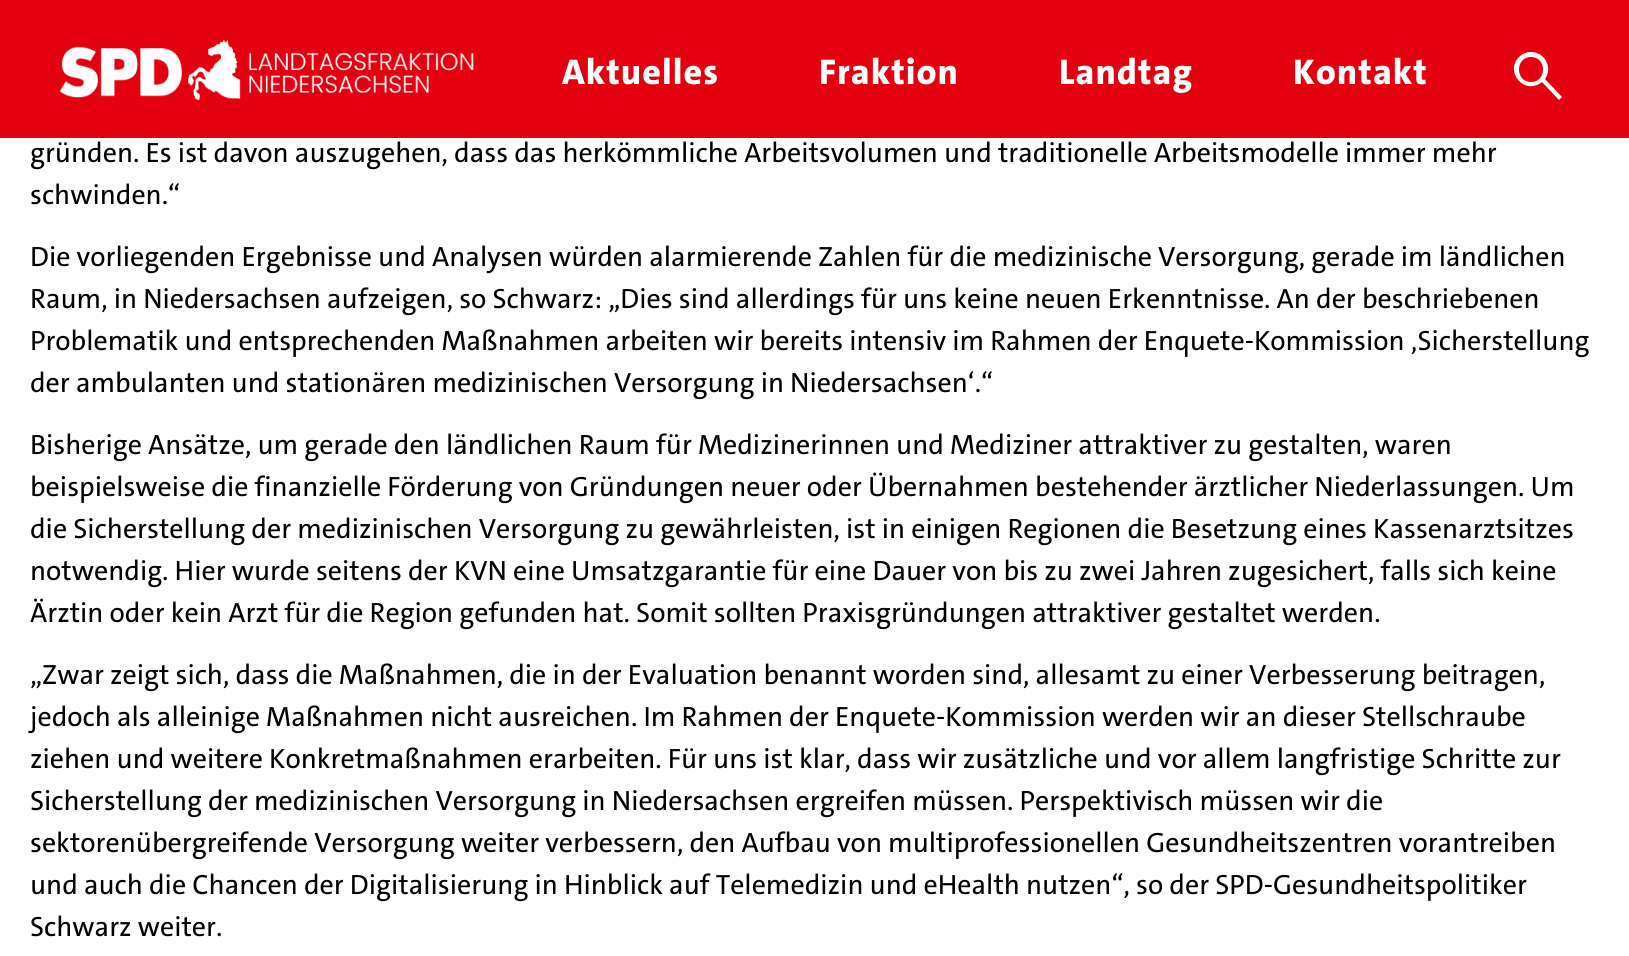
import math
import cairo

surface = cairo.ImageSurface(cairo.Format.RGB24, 1629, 956)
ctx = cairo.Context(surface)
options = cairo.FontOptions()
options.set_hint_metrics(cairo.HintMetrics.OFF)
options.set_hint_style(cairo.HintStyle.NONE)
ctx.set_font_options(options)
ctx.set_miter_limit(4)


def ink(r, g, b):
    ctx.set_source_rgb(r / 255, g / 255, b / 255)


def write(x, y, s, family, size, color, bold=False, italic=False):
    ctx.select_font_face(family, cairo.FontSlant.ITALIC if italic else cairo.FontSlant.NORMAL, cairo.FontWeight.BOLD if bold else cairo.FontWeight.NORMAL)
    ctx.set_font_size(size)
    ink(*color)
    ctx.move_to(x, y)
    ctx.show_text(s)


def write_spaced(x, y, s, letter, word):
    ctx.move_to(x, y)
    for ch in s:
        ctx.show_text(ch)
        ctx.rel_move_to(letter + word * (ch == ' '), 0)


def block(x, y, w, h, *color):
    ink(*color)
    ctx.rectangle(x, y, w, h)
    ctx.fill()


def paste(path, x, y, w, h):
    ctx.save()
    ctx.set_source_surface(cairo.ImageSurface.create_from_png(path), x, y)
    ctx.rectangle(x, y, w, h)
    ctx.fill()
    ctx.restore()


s1 = dict(family="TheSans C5 Medium", size=28, color=(0, 0, 0))

ink(255, 255, 255)
ctx.paint()
block(0, 0, 1629, 138, 227, 0, 15)
paste("pic1.png", 60, 40, 414, 60)
ctx.select_font_face("TheSans C5 ExtraBold")
ctx.set_font_size(36)
ink(255, 255, 255)
write_spaced(562, 84, "Aktuelles", 1, 0)
write_spaced(819, 84, "Fraktion", 1, 0)
write_spaced(1059, 84, "Landtag", 1, 0)
write_spaced(1293, 84, "Kontakt", 1, 0)
ctx.new_path()
ctx.move_to(1531, 82)
ctx.curve_to(1515, 82, 1515, 57, 1531, 57)
ctx.curve_to(1547, 57, 1547, 82, 1531, 82)
ctx.move_to(1531, 52)
ctx.curve_to(1526, 52, 1522, 54, 1519, 57)
ctx.curve_to(1504, 72, 1525, 96, 1542, 82)
ctx.line_to(1559, 100)
ctx.line_to(1562, 97)
ctx.line_to(1545, 79)
ctx.curve_to(1553, 68, 1545, 52, 1531, 52)
ctx.fill()
write(30, 162, "gründen. Es ist davon auszugehen, dass das herkömmliche Arbeitsvolumen und traditionelle Arbeitsmodelle immer mehr", **s1)
write(30, 204, "schwinden.“", **s1)
write(30, 266, "Die vorliegenden Ergebnisse und Analysen würden alarmierende Zahlen für die medizinische Versorgung, gerade im ländlichen", **s1)
write(30, 308, "Raum, in Niedersachsen aufzeigen, so Schwarz: „Dies sind allerdings für uns keine neuen Erkenntnisse. An der beschriebenen", **s1)
write(30, 350, "Problematik und entsprechenden Maßnahmen arbeiten wir bereits intensiv im Rahmen der Enquete-Kommission ‚Sicherstellung", **s1)
write(30, 392, "der ambulanten und stationären medizinischen Versorgung in Niedersachsen‘.“", **s1)
write(30, 454, "Bisherige Ansätze, um gerade den ländlichen Raum für Medizinerinnen und Mediziner attraktiver zu gestalten, waren", **s1)
write(30, 496, "beispielsweise die finanzielle Förderung von Gründungen neuer oder Übernahmen bestehender ärztlicher Niederlassungen. Um", **s1)
write(30, 538, "die Sicherstellung der medizinischen Versorgung zu gewährleisten, ist in einigen Regionen die Besetzung eines Kassenarztsitzes", **s1)
write(30, 580, "notwendig. Hier wurde seitens der KVN eine Umsatzgarantie für eine Dauer von bis zu zwei Jahren zugesichert, falls sich keine", **s1)
write(30, 622, "Ärztin oder kein Arzt für die Region gefunden hat. Somit sollten Praxisgründungen attraktiver gestaltet werden.", **s1)
write(30, 684, "„Zwar zeigt sich, dass die Maßnahmen, die in der Evaluation benannt worden sind, allesamt zu einer Verbesserung beitragen,", **s1)
write(30, 726, "jedoch als alleinige Maßnahmen nicht ausreichen. Im Rahmen der Enquete-Kommission werden wir an dieser Stellschraube", **s1)
write(30, 768, "ziehen und weitere Konkretmaßnahmen erarbeiten. Für uns ist klar, dass wir zusätzliche und vor allem langfristige Schritte zur", **s1)
write(30, 810, "Sicherstellung der medizinischen Versorgung in Niedersachsen ergreifen müssen. Perspektivisch müssen wir die", **s1)
write(30, 852, "sektorenübergreifende Versorgung weiter verbessern, den Aufbau von multiprofessionellen Gesundheitszentren vorantreiben", **s1)
write(30, 894, "und auch die Chancen der Digitalisierung in Hinblick auf Telemedizin und eHealth nutzen“, so der SPD-Gesundheitspolitiker", **s1)
write(30, 936, "Schwarz weiter.", **s1)
surface.write_to_png("screenshot.png")
